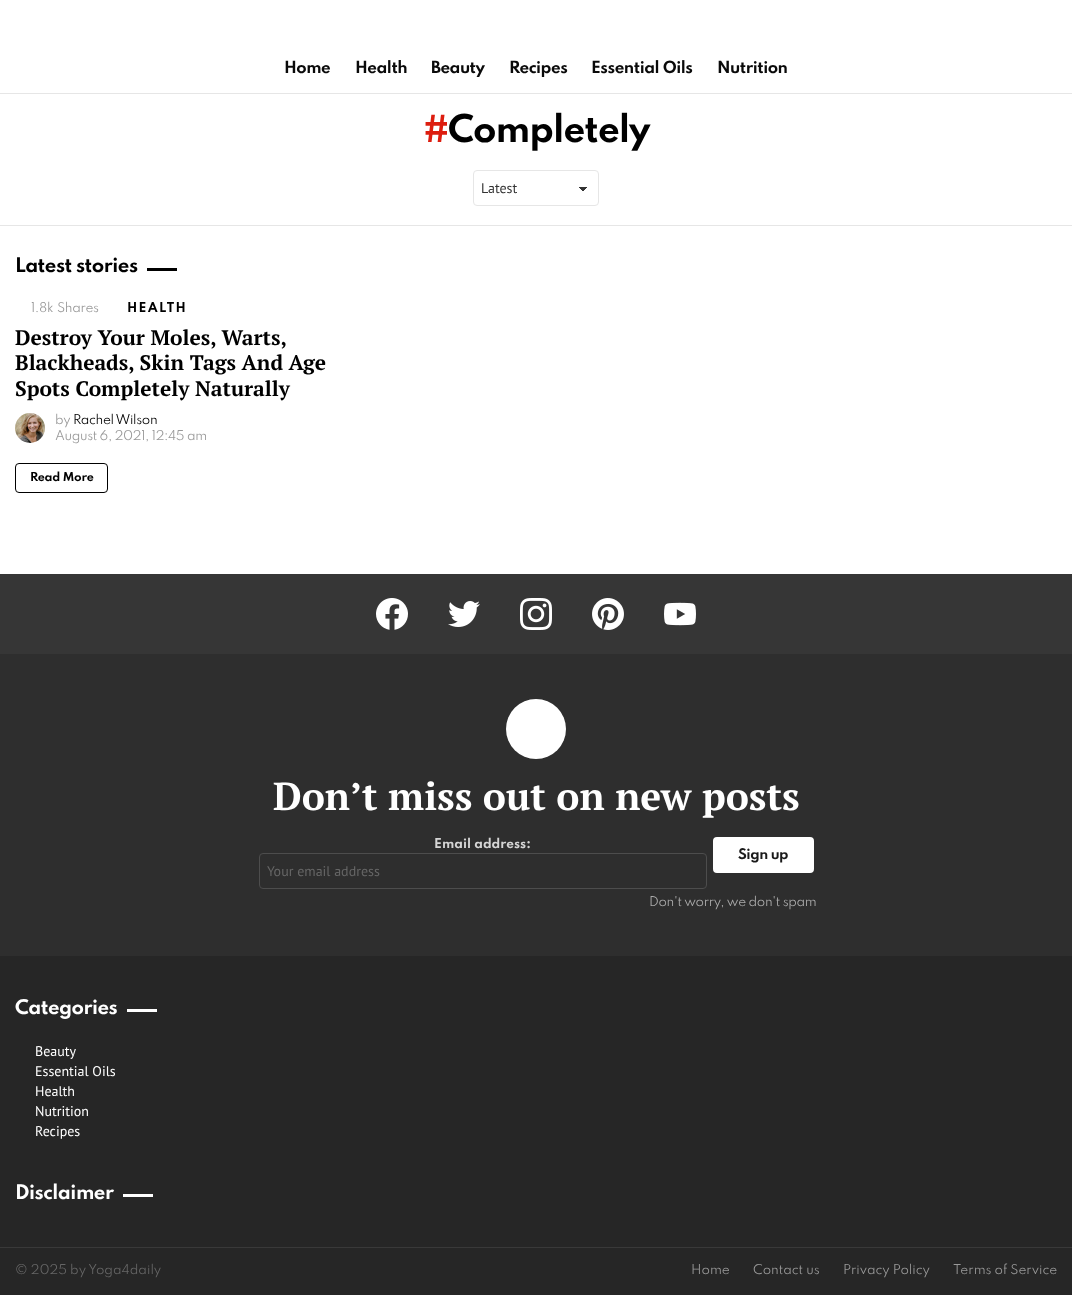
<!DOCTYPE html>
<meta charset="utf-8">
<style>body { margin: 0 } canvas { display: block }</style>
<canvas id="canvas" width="1072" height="1295"></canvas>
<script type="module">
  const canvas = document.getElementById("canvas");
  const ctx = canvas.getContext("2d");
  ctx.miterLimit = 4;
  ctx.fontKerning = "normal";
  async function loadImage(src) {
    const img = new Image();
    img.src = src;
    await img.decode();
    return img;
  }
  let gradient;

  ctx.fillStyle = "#ffffff";
  ctx.fillRect(0, 0, 1072, 1295);
  ctx.letterSpacing = "-0.5px";
  ctx.font = "bold 15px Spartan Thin";
  ctx.fillStyle = "#0a0a0a";
  ctx.fillText("Home", 284, 73);
  ctx.fillText("Health", 355, 73);
  ctx.fillText("Beauty", 431, 73);
  ctx.fillText("Recipes", 509, 73);
  ctx.fillText("Essential Oils", 591, 73);
  ctx.fillText("Nutrition", 717, 73);
  ctx.fillStyle = "#e6e6e6";
  ctx.fillRect(0, 93, 1072, 1);
  ctx.letterSpacing = "-1px";
  ctx.font = "bold 34px Spartan Thin";
  ctx.fillStyle = "#dd1d0f";
  ctx.fillText("#", 423, 142);
  ctx.fillStyle = "#000000";
  ctx.fillText("Completely", 448, 142);
  gradient = ctx.createLinearGradient(583, 187, 588, 191);
  gradient.addColorStop(0.5, "#333333");
  gradient.addColorStop(0.5, "#ffffff");
  ctx.fillStyle = gradient;
  ctx.fillRect(583, 187, 5, 4);
  gradient = ctx.createLinearGradient(578, 191, 583, 187);
  gradient.addColorStop(0.5, "#ffffff");
  gradient.addColorStop(0.5, "#333333");
  ctx.fillStyle = gradient;
  ctx.fillRect(578, 187, 5, 4);
  ctx.beginPath();
  ctx.roundRect(473.5, 170.5, 125, 35, 3.5);
  ctx.strokeStyle = "#e6e6e6";
  ctx.stroke();
  ctx.letterSpacing = "0px";
  ctx.font = "14px PT Sans";
  ctx.fillStyle = "#333333";
  ctx.fillText("Latest", 481, 193);
  ctx.fillStyle = "#e6e6e6";
  ctx.fillRect(0, 225, 1072, 1);
  ctx.letterSpacing = "-0.5px";
  ctx.font = "bold 18px Spartan Thin";
  ctx.fillStyle = "#000000";
  ctx.fillText("Latest stories", 15, 272);
  ctx.fillRect(147, 268, 30, 3);
  ctx.letterSpacing = "-0.35px";
  ctx.font = "12px Spartan Thin";
  ctx.fillStyle = "#999999";
  ctx.fillText("1.8k", 31, 312);
  ctx.fillText("Shares", 57, 312);
  ctx.letterSpacing = "1.25px";
  ctx.font = "bold 12px Spartan Thin";
  ctx.fillStyle = "#000000";
  ctx.fillText("HEALTH", 127, 312);
  ctx.letterSpacing = "0px";
  ctx.font = "bold 21px PT Serif";
  ctx.fillText("Destroy Your Moles, Warts,", 15, 345);
  ctx.fillText("Blackheads, Skin Tags And Age", 15, 370);
  ctx.fillText("Spots Completely Naturally", 15, 396);
  ctx.letterSpacing = "-0.35px";
  ctx.font = "12px Spartan Thin";
  ctx.fillStyle = "#999999";
  ctx.fillText("by", 55, 424);
  ctx.drawImage(await loadImage("img1.png"), 15, 413, 30, 30);
  ctx.fillStyle = "#000000";
  ctx.fillText("Rachel Wilson", 73, 424);
  ctx.fillStyle = "#999999";
  ctx.fillText("August 6, 2021, 12:45 am", 55, 440);
  ctx.beginPath();
  ctx.roundRect(15.5, 463.5, 92, 29, 3.5);
  ctx.strokeStyle = "#000000";
  ctx.stroke();
  ctx.letterSpacing = "-0.25px";
  ctx.font = "bold 11px Spartan Thin";
  ctx.fillStyle = "#000000";
  ctx.fillText("Read More", 30, 481);
  ctx.fillStyle = "#363636";
  ctx.fillRect(0, 574, 1072, 80);
  ctx.drawImage(await loadImage("img2.png"), 376, 598, 32, 32);
  ctx.drawImage(await loadImage("img3.png"), 448, 601, 32, 26);
  ctx.drawImage(await loadImage("img4.png"), 520, 598, 32, 32);
  ctx.drawImage(await loadImage("img5.png"), 592, 598, 32, 32);
  ctx.drawImage(await loadImage("img6.png"), 664, 602, 32, 24);
  ctx.fillStyle = "#2e2e2e";
  ctx.fillRect(0, 654, 1072, 302);
  ctx.fillStyle = "#ffffff";
  ctx.beginPath();
  ctx.arc(536, 729, 30, 0, Math.PI * 2);
  ctx.fill();
  ctx.letterSpacing = "0px";
  ctx.font = "bold 39px PT Serif";
  ctx.fillText("Don’t miss out on new posts", 273, 810);
  ctx.font = "bold 12px Spartan Thin";
  ctx.fillStyle = "#d5d5d5";
  ctx.fillText("Email address:", 434, 848);
  ctx.beginPath();
  ctx.roundRect(259.5, 853.5, 447, 35, 3.5);
  ctx.strokeStyle = "#4d4d4d";
  ctx.stroke();
  ctx.font = "14px PT Sans";
  ctx.fillStyle = "#666666";
  ctx.fillText("Your email address", 267, 876);
  ctx.fillStyle = "#ffffff";
  ctx.beginPath();
  ctx.roundRect(714, 838, 99, 34, 3);
  ctx.fill();
  ctx.strokeStyle = "#ffffff";
  ctx.lineWidth = 2;
  ctx.stroke();
  ctx.letterSpacing = "-0.5px";
  ctx.font = "bold 13px Spartan Thin";
  ctx.fillStyle = "#1a1a1a";
  ctx.fillText("Sign up", 738, 859);
  ctx.letterSpacing = "-0.35px";
  ctx.font = "12px Spartan Thin";
  ctx.fillStyle = "#ababab";
  ctx.fillText("Don't worry, we don't spam", 649, 906);
  ctx.fillStyle = "#262626";
  ctx.fillRect(0, 956, 1072, 291);
  ctx.letterSpacing = "-0.5px";
  ctx.font = "bold 18px Spartan Thin";
  ctx.fillStyle = "#ffffff";
  ctx.fillText("Categories", 15, 1014);
  ctx.fillRect(127, 1009, 30, 3);
  ctx.letterSpacing = "0px";
  ctx.font = "14px PT Sans";
  ctx.fillText("Beauty", 35, 1056);
  ctx.fillText("Essential Oils", 35, 1076);
  ctx.fillText("Health", 35, 1096);
  ctx.fillText("Nutrition", 35, 1116);
  ctx.fillText("Recipes", 35, 1136);
  ctx.letterSpacing = "-0.5px";
  ctx.font = "bold 18px Spartan Thin";
  ctx.fillText("Disclaimer", 15, 1199);
  ctx.fillRect(123, 1194, 30, 3);
  ctx.fillStyle = "#393939";
  ctx.fillRect(0, 1247, 1072, 1);
  ctx.fillStyle = "#262626";
  ctx.fillRect(0, 1248, 1072, 47);
  ctx.letterSpacing = "0px";
  ctx.font = "12px Spartan Thin";
  ctx.fillStyle = "#666666";
  ctx.fillText("© 2025 by Yoga4daily", 15, 1274);
  ctx.fillStyle = "#999999";
  ctx.fillText("Home", 691, 1274);
  ctx.fillText("Contact us", 753, 1274);
  ctx.fillText("Privacy Policy", 843, 1274);
  ctx.fillText("Terms of Service", 953, 1274);
</script>
